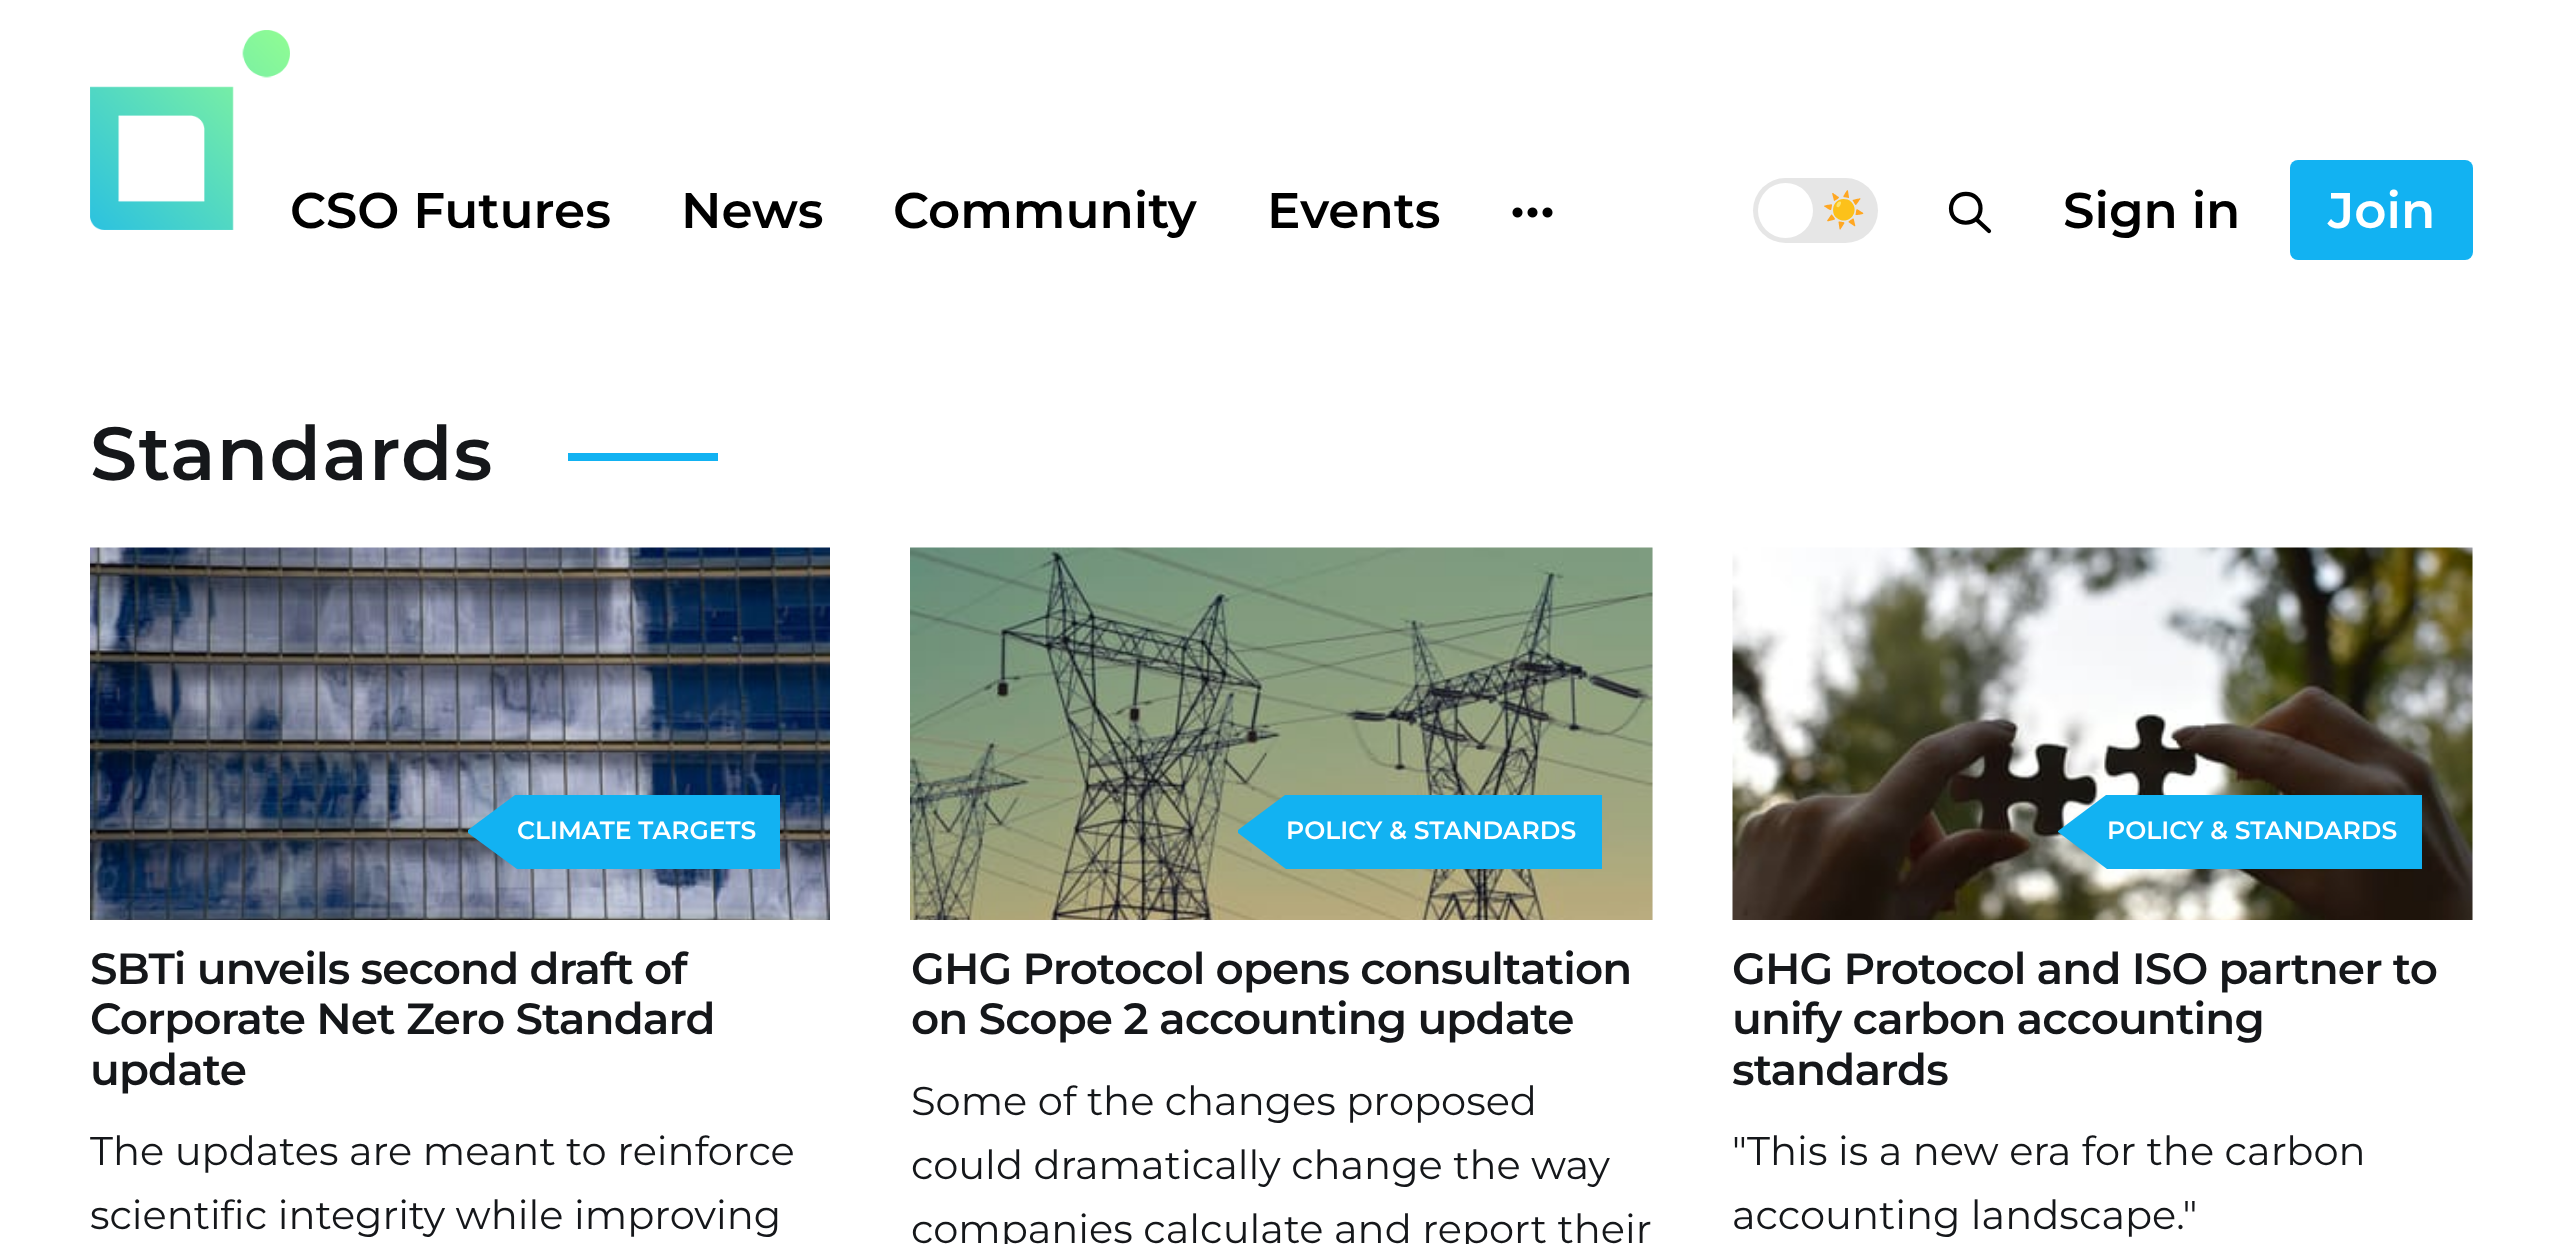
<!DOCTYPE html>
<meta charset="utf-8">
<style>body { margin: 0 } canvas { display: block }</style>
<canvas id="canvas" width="2561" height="1244"></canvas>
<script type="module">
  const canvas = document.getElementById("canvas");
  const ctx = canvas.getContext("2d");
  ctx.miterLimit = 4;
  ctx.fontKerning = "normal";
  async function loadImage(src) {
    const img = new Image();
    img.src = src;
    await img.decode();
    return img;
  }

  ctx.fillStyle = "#ffffff";
  ctx.fillRect(0, 0, 2561, 1244);
  ctx.drawImage(await loadImage("img1.png"), 90, 30, 200, 200);
  ctx.font = "600 50px Montserrat";
  ctx.fillStyle = "#000000";
  ctx.fillText("CSO Futures", 290, 228);
  ctx.fillText("News", 681, 228);
  ctx.fillText("Community", 893, 228);
  ctx.fillText("Events", 1267, 228);
  ctx.drawImage(await loadImage("img2.png"), 1512, 207, 41, 11);
  ctx.fillStyle = "#e6e6e6";
  ctx.beginPath();
  ctx.roundRect(1753, 178, 125, 65, 32.5);
  ctx.fill();
  ctx.fillStyle = "#ffffff";
  ctx.beginPath();
  ctx.arc(1785.5, 210.5, 27.5, 0, Math.PI * 2);
  ctx.fill();
  ctx.font = "bold 35px Noto Color Emoji";
  ctx.fillStyle = "#15171a";
  ctx.fillText("☀️", 1822, 222);
  ctx.beginPath();
  ctx.moveTo(1989, 231);
  ctx.lineTo(1976, 219);
  ctx.moveTo(1980.5, 208.5);
  ctx.bezierCurveTo(1980.5, 227.5, 1951, 227.5, 1951, 208.5);
  ctx.bezierCurveTo(1951.5, 189, 1980.5, 189, 1980.5, 208.5);
  ctx.closePath();
  ctx.strokeStyle = "#000000";
  ctx.lineWidth = 4.2;
  ctx.lineCap = "round";
  ctx.lineJoin = "round";
  ctx.stroke();
  ctx.font = "600 50px Montserrat";
  ctx.fillStyle = "#000000";
  ctx.fillText("Sign in", 2063, 228);
  ctx.fillStyle = "#12b2f2";
  ctx.beginPath();
  ctx.roundRect(2290, 160, 183, 100, 8);
  ctx.fill();
  ctx.fillStyle = "#ffffff";
  ctx.fillText("Join", 2328, 228);
  ctx.letterSpacing = "1.25px";
  ctx.font = "600 75px Montserrat";
  ctx.fillStyle = "#15171a";
  ctx.fillText("Standards", 90, 480);
  ctx.fillStyle = "#12b2f2";
  ctx.fillRect(568, 453, 150, 8);
  ctx.drawImage(await loadImage("img3.png"), 90, 547, 740, 373);
  ctx.beginPath();
  ctx.moveTo(468, 830);
  ctx.lineTo(468, 833);
  ctx.lineTo(517, 869);
  ctx.lineTo(780, 869);
  ctx.lineTo(780, 795);
  ctx.lineTo(515, 795);
  ctx.closePath();
  ctx.fill();
  ctx.letterSpacing = "0px";
  ctx.font = "600 25px Montserrat";
  ctx.fillStyle = "#ffffff";
  ctx.fillText("CLIMATE TARGETS", 517, 839);
  ctx.letterSpacing = "-0.9px";
  ctx.font = "600 43.75px Montserrat";
  ctx.fillStyle = "#15171a";
  ctx.fillText("SBTi unveils second draft of", 90, 984);
  ctx.fillText("Corporate Net Zero Standard", 90, 1034);
  ctx.fillText("update", 90, 1085);
  ctx.letterSpacing = "0px";
  ctx.font = "40px Montserrat";
  ctx.fillText("The updates are meant to reinforce", 90, 1165);
  ctx.fillText("scientific integrity while improving", 90, 1229);
  ctx.fillStyle = "#f6f6f6";
  ctx.fillRect(1652, 548, 1, 372);
  ctx.drawImage(await loadImage("img4.png"), 910, 547, 743, 373);
  ctx.fillStyle = "#12b2f2";
  ctx.beginPath();
  ctx.moveTo(1238, 830);
  ctx.lineTo(1238, 833);
  ctx.lineTo(1286, 869);
  ctx.lineTo(1602, 869);
  ctx.lineTo(1602, 795);
  ctx.lineTo(1285, 795);
  ctx.closePath();
  ctx.fill();
  ctx.font = "600 25px Montserrat";
  ctx.fillStyle = "#ffffff";
  ctx.fillText("POLICY & STANDARDS", 1286, 839);
  ctx.letterSpacing = "-0.9px";
  ctx.font = "600 43.75px Montserrat";
  ctx.fillStyle = "#15171a";
  ctx.fillText("GHG Protocol opens consultation", 911, 984);
  ctx.fillText("on Scope 2 accounting update", 911, 1034);
  ctx.letterSpacing = "0px";
  ctx.font = "40px Montserrat";
  ctx.fillText("Some of the changes proposed", 911, 1115);
  ctx.fillText("could dramatically change the way", 911, 1179);
  ctx.fillText("companies calculate and report their", 911, 1243);
  ctx.fillStyle = "#f6f6f6";
  ctx.fillRect(2472, 548, 1, 372);
  ctx.drawImage(await loadImage("img5.png"), 1732, 547, 741, 373);
  ctx.fillStyle = "#12b2f2";
  ctx.beginPath();
  ctx.moveTo(2058, 831);
  ctx.lineTo(2058, 832);
  ctx.lineTo(2107, 869);
  ctx.lineTo(2422, 869);
  ctx.lineTo(2422, 795);
  ctx.lineTo(2106, 795);
  ctx.closePath();
  ctx.fill();
  ctx.font = "600 25px Montserrat";
  ctx.fillStyle = "#ffffff";
  ctx.fillText("POLICY & STANDARDS", 2107, 839);
  ctx.letterSpacing = "-0.9px";
  ctx.font = "600 43.75px Montserrat";
  ctx.fillStyle = "#15171a";
  ctx.fillText("GHG Protocol and ISO partner to", 1732, 984);
  ctx.fillText("unify carbon accounting", 1732, 1034);
  ctx.fillText("standards", 1732, 1085);
  ctx.letterSpacing = "0px";
  ctx.font = "40px Montserrat";
  ctx.fillText("\"This is a new era for the carbon", 1732, 1165);
  ctx.fillText("accounting landscape.\"", 1732, 1229);
</script>
